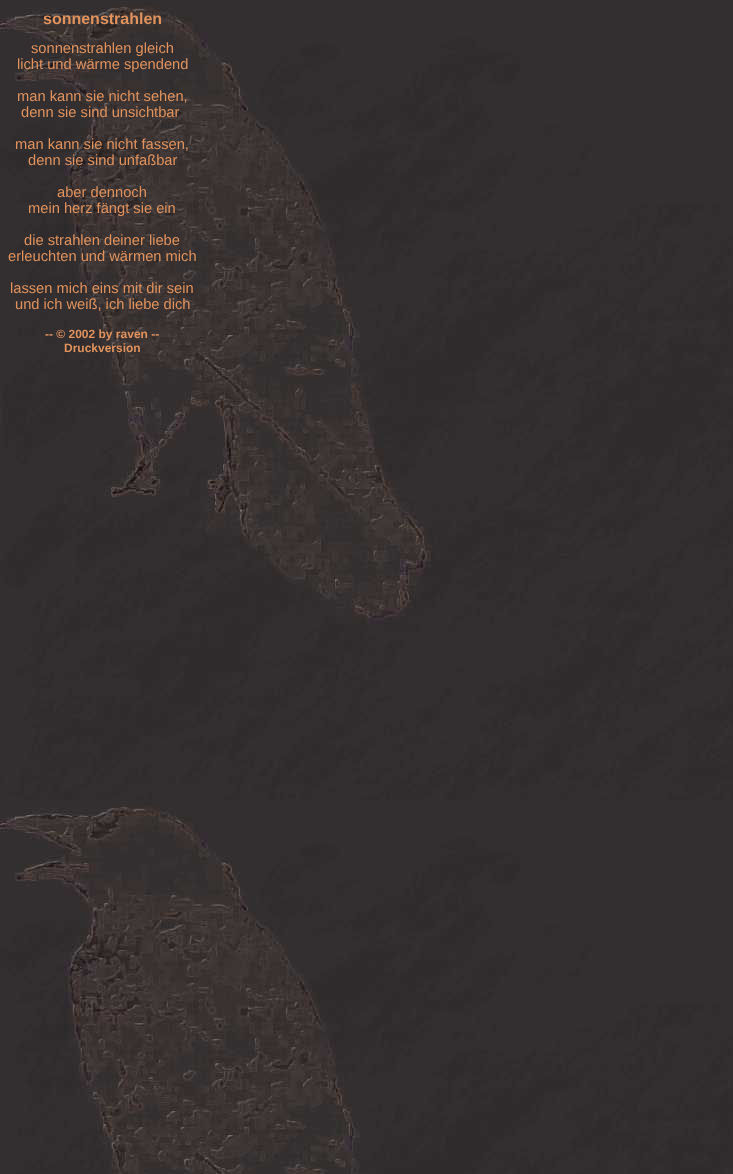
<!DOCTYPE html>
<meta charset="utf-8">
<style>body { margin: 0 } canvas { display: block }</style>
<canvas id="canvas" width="733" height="1174"></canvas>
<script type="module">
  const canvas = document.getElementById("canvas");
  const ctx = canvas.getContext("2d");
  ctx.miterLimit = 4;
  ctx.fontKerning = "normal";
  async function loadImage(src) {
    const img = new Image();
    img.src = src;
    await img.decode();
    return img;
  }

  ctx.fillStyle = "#332d31";
  ctx.fillRect(0, 0, 733, 1174);
  ctx.drawImage(await loadImage("img1.png"), 0, 1, 733, 1173);
  ctx.font = "bold 16px Liberation Sans";
  ctx.fillStyle = "#e1925d";
  ctx.fillText("sonnenstrahlen", 43, 24);
  ctx.font = "14.7px Liberation Sans";
  ctx.fillText("sonnenstrahlen gleich", 31, 53);
  ctx.fillText("licht und wärme spendend", 17, 69);
  ctx.fillText("man kann sie nicht sehen,", 17, 101);
  ctx.fillText("denn sie sind unsichtbar", 21, 117);
  ctx.fillText("man kann sie nicht fassen,", 15, 149);
  ctx.fillText("denn sie sind unfaßbar", 28, 165);
  ctx.fillText("aber dennoch", 57, 197);
  ctx.fillText("mein herz fängt sie ein", 28, 213);
  ctx.fillText("die strahlen deiner liebe", 24, 245);
  ctx.fillText("erleuchten und wärmen mich", 8, 261);
  ctx.fillText("lassen mich eins mit dir sein", 10, 293);
  ctx.fillText("und ich weiß, ich liebe dich", 15, 309);
  ctx.font = "bold 12px Liberation Sans";
  ctx.fillText("-- © 2002 by raven --", 45, 338);
  ctx.fillText("Druckversion", 64, 352);
</script>
